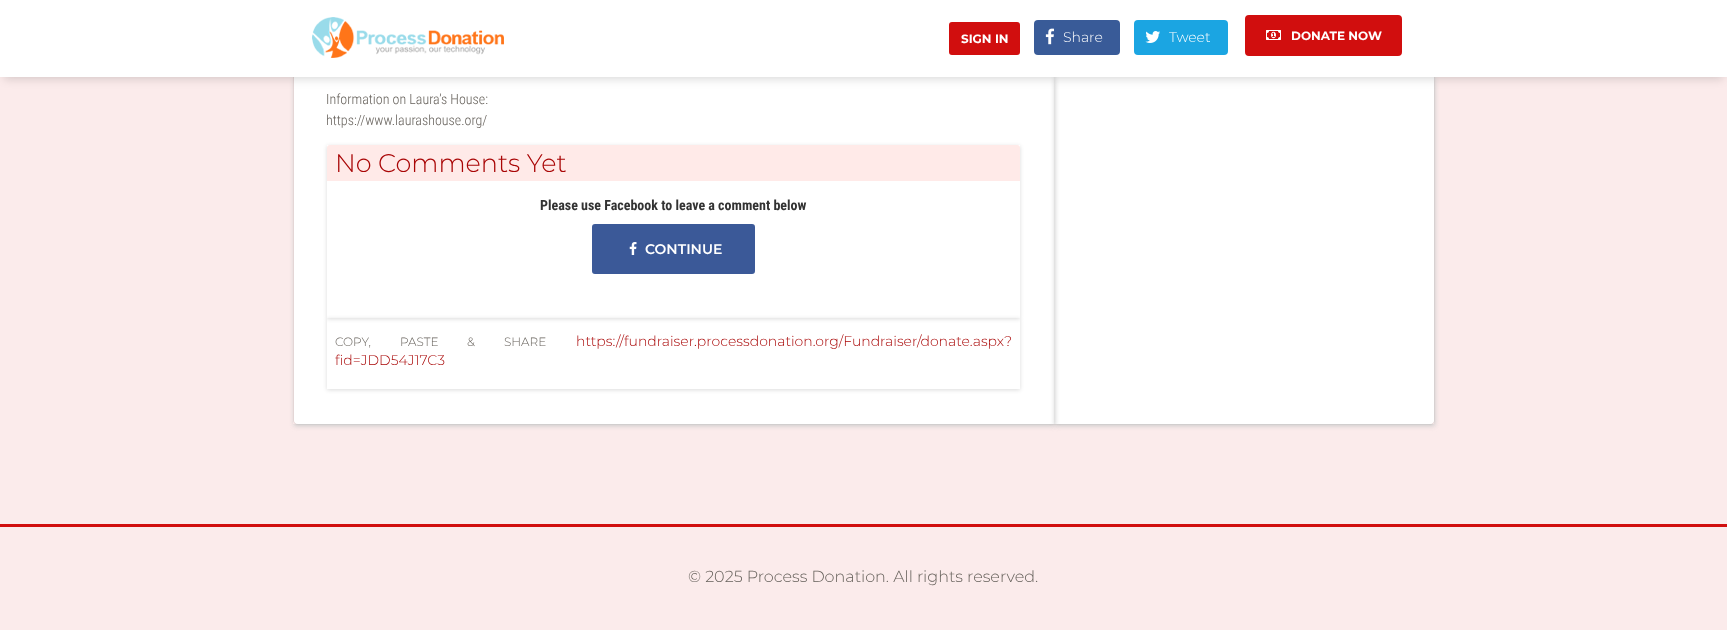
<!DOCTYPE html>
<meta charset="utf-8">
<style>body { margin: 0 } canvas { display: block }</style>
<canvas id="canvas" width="1727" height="630"></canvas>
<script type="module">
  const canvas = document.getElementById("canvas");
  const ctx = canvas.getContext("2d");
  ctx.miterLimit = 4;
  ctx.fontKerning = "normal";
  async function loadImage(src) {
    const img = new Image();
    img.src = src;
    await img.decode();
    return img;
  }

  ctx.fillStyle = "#fbebeb";
  ctx.fillRect(0, 0, 1727, 630);
  ctx.beginPath();
  ctx.roundRect(293.5, -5.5, 1141, 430, 4.5);
  ctx.strokeStyle = "#e8dada";
  ctx.stroke();
  ctx.fillStyle = "rgba(0, 0, 0, 0.05)";
  ctx.filter = "blur(1px)";
  ctx.beginPath();
  ctx.roundRect(294, -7, 1140, 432, 4);
  ctx.fill();
  ctx.filter = "none";
  ctx.fillStyle = "#ffffff";
  ctx.beginPath();
  ctx.roundRect(294, -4, 1140, 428, 4);
  ctx.fill();
  ctx.fillStyle = "rgba(0, 0, 0, 0.15)";
  ctx.filter = "blur(5px)";
  ctx.beginPath();
  ctx.rect(4, 10, 1719, 69);
  ctx.fill();
  ctx.filter = "none";
  ctx.save();
  ctx.beginPath();
  ctx.moveTo(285, 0);
  ctx.lineTo(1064, 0);
  ctx.lineTo(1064, 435);
  ctx.lineTo(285, 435);
  ctx.closePath();
  ctx.moveTo(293, -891);
  ctx.lineTo(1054, -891);
  ctx.lineTo(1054, 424);
  ctx.lineTo(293, 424);
  ctx.closePath();
  ctx.clip("evenodd");
  ctx.fillStyle = "#cccccc";
  ctx.filter = "blur(2.5px)";
  ctx.beginPath();
  ctx.rect(294, -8, 761, 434);
  ctx.fill();
  ctx.filter = "none";
  ctx.restore();
  ctx.save();
  ctx.beginPath();
  ctx.moveTo(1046, 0);
  ctx.lineTo(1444, 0);
  ctx.lineTo(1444, 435);
  ctx.lineTo(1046, 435);
  ctx.closePath();
  ctx.moveTo(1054, -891);
  ctx.lineTo(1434, -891);
  ctx.lineTo(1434, 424);
  ctx.lineTo(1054, 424);
  ctx.closePath();
  ctx.clip("evenodd");
  ctx.fillStyle = "#cccccc";
  ctx.filter = "blur(2.5px)";
  ctx.beginPath();
  ctx.rect(1055, -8, 380, 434);
  ctx.fill();
  ctx.filter = "none";
  ctx.restore();
  ctx.fillStyle = "#ffffff";
  ctx.fillRect(0, 0, 1727, 77);
  ctx.drawImage(await loadImage("img1.png"), 312, 17, 192, 41);
  ctx.fillStyle = "#d10e0e";
  ctx.beginPath();
  ctx.roundRect(950, 23, 69, 31, 2);
  ctx.fill();
  ctx.strokeStyle = "#d10e0e";
  ctx.lineWidth = 2;
  ctx.stroke();
  ctx.font = "bold 12px Montserrat";
  ctx.fillStyle = "#ffffff";
  ctx.fillText("SIGN IN", 961, 43);
  ctx.fillStyle = "#395b98";
  ctx.beginPath();
  ctx.roundRect(1034, 20, 86, 35, 4);
  ctx.fill();
  ctx.drawImage(await loadImage("img2.png"), 1045, 28, 9, 17);
  ctx.font = "300 14px Montserrat";
  ctx.fillStyle = "#ffffff";
  ctx.fillText("Share", 1063, 42);
  ctx.fillStyle = "#1ba5e2";
  ctx.beginPath();
  ctx.roundRect(1134, 20, 94, 35, 4);
  ctx.fill();
  ctx.drawImage(await loadImage("img3.png"), 1145, 31, 15, 12);
  ctx.fillStyle = "#ffffff";
  ctx.fillText("Tweet", 1169, 42);
  ctx.fillStyle = "#d10e0e";
  ctx.beginPath();
  ctx.roundRect(1246, 16, 155, 39, 3);
  ctx.fill();
  ctx.stroke();
  ctx.drawImage(await loadImage("img4.png"), 1266, 30, 15, 10);
  ctx.font = "bold 12px Montserrat";
  ctx.fillStyle = "#ffffff";
  ctx.fillText("DONATE NOW", 1291, 40);
  ctx.font = "300 14px Roboto Condensed";
  ctx.fillStyle = "#66615b";
  ctx.fillText("Information on Laura’s House:", 326, 104);
  ctx.fillText("https://www.laurashouse.org/", 326, 125);
  ctx.save();
  ctx.beginPath();
  ctx.moveTo(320, 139);
  ctx.lineTo(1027, 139);
  ctx.lineTo(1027, 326);
  ctx.lineTo(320, 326);
  ctx.closePath();
  ctx.moveTo(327, 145);
  ctx.lineTo(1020, 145);
  ctx.lineTo(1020, 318);
  ctx.lineTo(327, 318);
  ctx.closePath();
  ctx.clip("evenodd");
  ctx.fillStyle = "rgba(0, 0, 0, 0.14)";
  ctx.filter = "blur(2px)";
  ctx.beginPath();
  ctx.rect(327, 146, 693, 173);
  ctx.fill();
  ctx.filter = "none";
  ctx.restore();
  ctx.fillStyle = "#ffeae8";
  ctx.beginPath();
  ctx.roundRect(327, 145, 693, 36, [3, 3, 0, 0]);
  ctx.fill();
  ctx.font = "300 25.5px Montserrat";
  ctx.fillStyle = "#a90606";
  ctx.fillText("No Comments Yet", 335, 172);
  ctx.font = "bold 14px Roboto Condensed";
  ctx.fillStyle = "#333333";
  ctx.fillText("Please use Facebook to leave a comment below", 540, 210);
  ctx.fillStyle = "#3b5998";
  ctx.beginPath();
  ctx.roundRect(593, 225, 161, 48, 2);
  ctx.fill();
  ctx.strokeStyle = "#3b5998";
  ctx.stroke();
  ctx.drawImage(await loadImage("img5.png"), 629, 242, 8, 13);
  ctx.font = "600 14px Montserrat";
  ctx.fillStyle = "#ffffff";
  ctx.fillText("CONTINUE", 645, 254);
  ctx.save();
  ctx.beginPath();
  ctx.moveTo(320, 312);
  ctx.lineTo(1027, 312);
  ctx.lineTo(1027, 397);
  ctx.lineTo(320, 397);
  ctx.closePath();
  ctx.moveTo(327, 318);
  ctx.lineTo(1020, 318);
  ctx.lineTo(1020, 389);
  ctx.lineTo(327, 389);
  ctx.closePath();
  ctx.clip("evenodd");
  ctx.fillStyle = "rgba(0, 0, 0, 0.14)";
  ctx.filter = "blur(2px)";
  ctx.beginPath();
  ctx.rect(327, 319, 693, 71);
  ctx.fill();
  ctx.filter = "none";
  ctx.restore();
  ctx.font = "300 12px Montserrat";
  ctx.fillStyle = "#66615b";
  ctx.fillText("COPY,", 335, 346);
  ctx.fillText("PASTE", 400, 346);
  ctx.fillText("&", 467, 346);
  ctx.fillText("SHARE", 504, 346);
  ctx.font = "300 14px Montserrat";
  ctx.fillStyle = "#a90606";
  ctx.fillText("https://fundraiser.processdonation.org/Fundraiser/donate.aspx?", 576, 346);
  ctx.fillText("fid=JDD54J17C3", 335, 365);
  ctx.fillStyle = "#d10e0e";
  ctx.fillRect(0, 524, 1727, 3);
  ctx.font = "300 16px Montserrat";
  ctx.fillStyle = "#66615b";
  ctx.fillText("© 2025 Process Donation. All rights reserved.", 688, 582);
</script>
